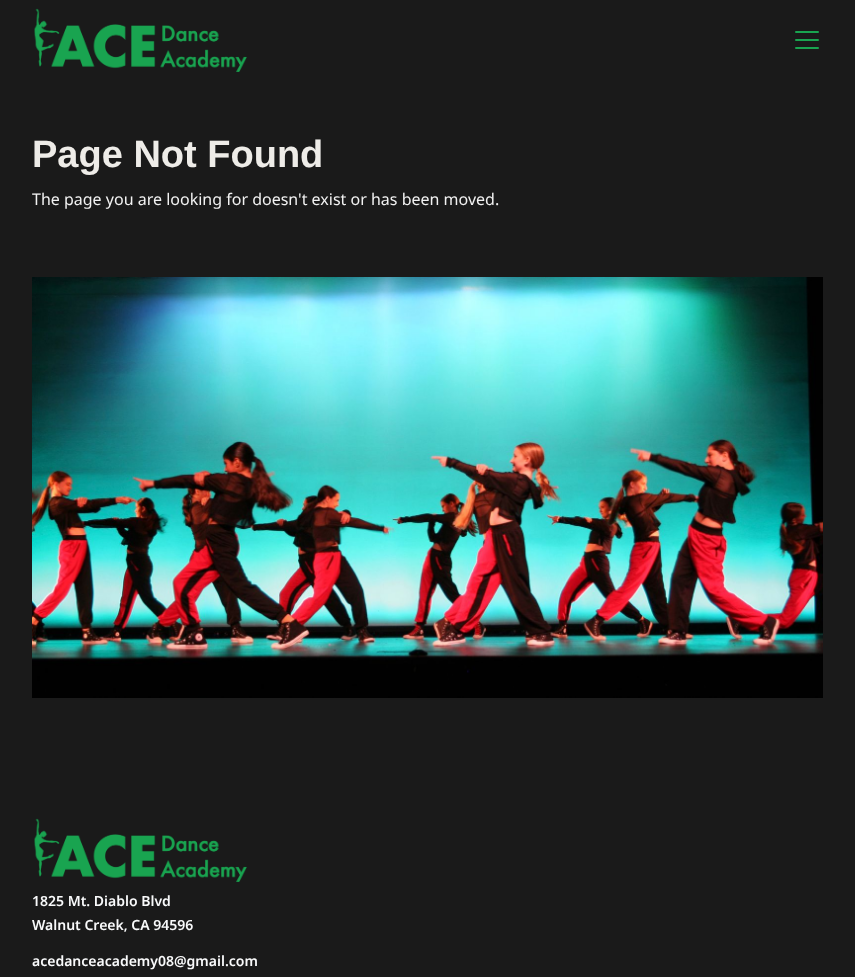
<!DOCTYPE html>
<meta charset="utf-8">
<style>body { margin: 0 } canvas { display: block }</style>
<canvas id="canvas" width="855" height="977"></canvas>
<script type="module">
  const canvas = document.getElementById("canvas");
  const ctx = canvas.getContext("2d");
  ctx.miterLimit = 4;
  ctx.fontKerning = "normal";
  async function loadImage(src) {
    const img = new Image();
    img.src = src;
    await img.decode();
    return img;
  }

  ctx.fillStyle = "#1a1a1a";
  ctx.fillRect(0, 0, 855, 977);
  ctx.drawImage(await loadImage("img1.png"), 34, 8, 213, 64);
  ctx.fillStyle = "#19a450";
  ctx.beginPath();
  ctx.roundRect(795, 31, 24, 2, 1);
  ctx.fill();
  ctx.beginPath();
  ctx.roundRect(795, 39, 24, 2, 1);
  ctx.fill();
  ctx.beginPath();
  ctx.roundRect(795, 47, 24, 2, 1);
  ctx.fill();
  ctx.font = "bold 38px Liberation Sans";
  ctx.fillStyle = "#eeece8";
  ctx.fillText("Page Not Found", 32, 167);
  ctx.font = "16px Noto Sans";
  ctx.fillStyle = "#f2f2f2";
  ctx.fillText("The page you are looking for doesn't exist or has been moved.", 32, 205);
  ctx.drawImage(await loadImage("img2.png"), 32, 277, 791, 421);
  ctx.drawImage(await loadImage("img1.png"), 34, 818, 213, 64);
  ctx.font = "600 14px Noto Sans";
  ctx.fillStyle = "#f9fafb";
  ctx.fillText("1825 Mt. Diablo Blvd", 32, 906);
  ctx.fillText("Walnut Creek, CA 94596", 32, 930);
  ctx.fillText("acedanceacademy08@gmail.com", 32, 966);
</script>
